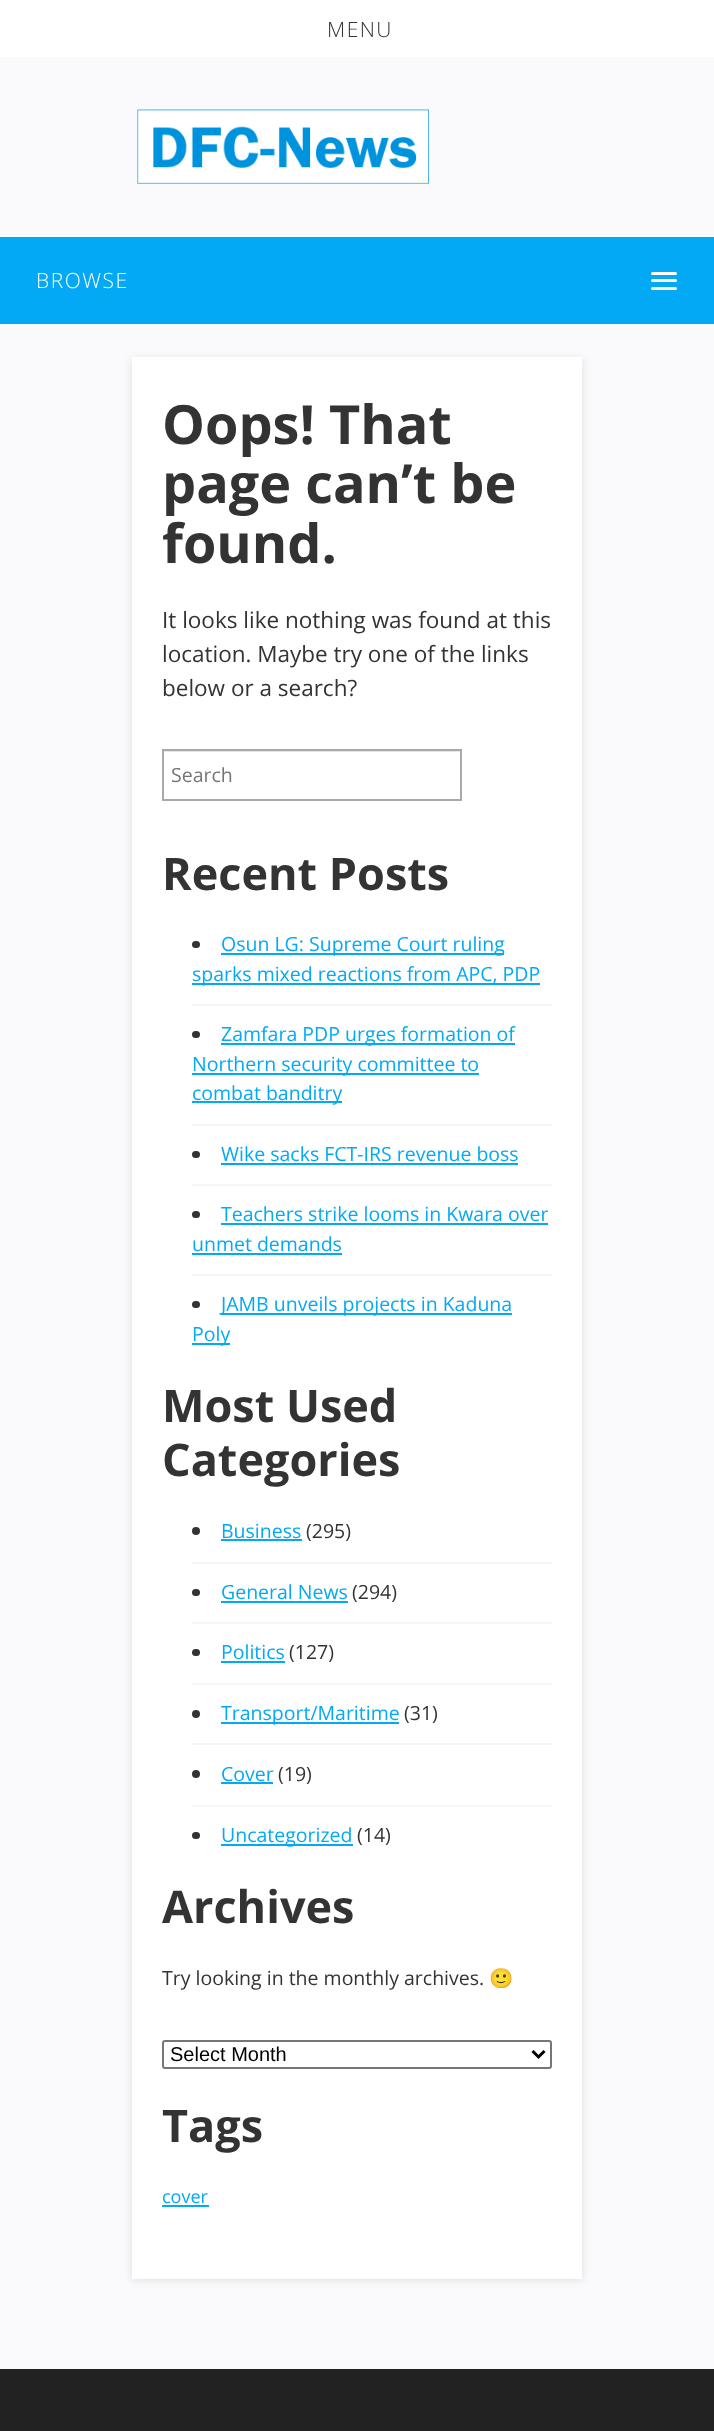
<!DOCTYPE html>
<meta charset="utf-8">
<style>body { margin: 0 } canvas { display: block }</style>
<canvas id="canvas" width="714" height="2431"></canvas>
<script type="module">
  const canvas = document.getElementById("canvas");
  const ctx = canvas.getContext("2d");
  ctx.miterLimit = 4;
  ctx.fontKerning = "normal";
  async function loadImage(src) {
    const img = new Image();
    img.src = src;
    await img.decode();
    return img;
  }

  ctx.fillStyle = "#fafafc";
  ctx.fillRect(0, 0, 714, 2431);
  ctx.fillStyle = "#ffffff";
  ctx.fillRect(0, 0, 714, 57);
  ctx.letterSpacing = "1.5px";
  ctx.font = "300 21px Open Sans";
  ctx.fillStyle = "#333333";
  ctx.fillText("MENU", 327, 37);
  ctx.drawImage(await loadImage("img1.png"), 137, 109, 292, 75);
  ctx.fillStyle = "#03a9f4";
  ctx.fillRect(0, 237, 714, 87);
  ctx.fillStyle = "#ffffff";
  ctx.fillText("BROWSE", 36, 288);
  ctx.beginPath();
  ctx.roundRect(651, 272, 26, 3, 1.5);
  ctx.fill();
  ctx.beginPath();
  ctx.roundRect(651, 279, 26, 3, 1.5);
  ctx.fill();
  ctx.beginPath();
  ctx.roundRect(651, 287, 26, 3, 1.5);
  ctx.fill();
  ctx.fillStyle = "rgba(190, 190, 190, 0.46)";
  ctx.filter = "blur(4px)";
  ctx.beginPath();
  ctx.rect(132, 359, 450, 1921);
  ctx.fill();
  ctx.filter = "none";
  ctx.fillStyle = "#ffffff";
  ctx.fillRect(132, 357, 450, 1922);
  ctx.letterSpacing = "0px";
  ctx.font = "bold 54px Open Sans";
  ctx.fillStyle = "#333333";
  ctx.fillText("Oops! That", 162, 444);
  ctx.fillText("page can’t be", 162, 503);
  ctx.fillText("found.", 162, 563);
  ctx.font = "22.5px Open Sans";
  ctx.fillText("It looks like nothing was found at this", 162, 628);
  ctx.fillText("location. Maybe try one of the links", 162, 662);
  ctx.fillText("below or a search?", 162, 696);
  ctx.fillStyle = "#e6e6e6";
  ctx.fillRect(164, 751, 297, 1);
  ctx.strokeStyle = "#a9a9a9";
  ctx.lineWidth = 2;
  ctx.strokeRect(163, 750, 298, 50);
  ctx.font = "19.5px Open Sans";
  ctx.fillStyle = "#757575";
  ctx.fillText("Search", 171, 782);
  ctx.font = "bold 45px Open Sans";
  ctx.fillStyle = "#333333";
  ctx.fillText("Recent Posts", 162, 890);
  ctx.fillStyle = "#f5f5f5";
  ctx.fillRect(192, 1004, 360, 2);
  ctx.fillStyle = "#333333";
  ctx.beginPath();
  ctx.roundRect(192, 941, 8, 7, 3.5);
  ctx.fill();
  ctx.fillStyle = "#03a9f4";
  ctx.fillRect(221, 953, 283, 2);
  ctx.font = "19.5px Open Sans";
  ctx.fillText("Osun LG: Supreme Court ruling", 221, 951);
  ctx.fillRect(192, 983, 348, 2);
  ctx.fillText("sparks mixed reactions from APC, PDP", 192, 981);
  ctx.fillStyle = "#f5f5f5";
  ctx.fillRect(192, 1124, 360, 2);
  ctx.fillStyle = "#333333";
  ctx.beginPath();
  ctx.roundRect(192, 1031, 8, 7, 3.5);
  ctx.fill();
  ctx.fillStyle = "#03a9f4";
  ctx.fillRect(221, 1043, 294, 2);
  ctx.fillText("Zamfara PDP urges formation of", 221, 1041);
  ctx.fillRect(192, 1073, 287, 2);
  ctx.fillText("Northern security committee to", 192, 1071);
  ctx.fillRect(192, 1101, 150, 2);
  ctx.fillText("combat banditry", 192, 1100);
  ctx.fillStyle = "#f5f5f5";
  ctx.fillRect(192, 1184, 360, 2);
  ctx.fillStyle = "#333333";
  ctx.beginPath();
  ctx.roundRect(192, 1151, 8, 7, 3.5);
  ctx.fill();
  ctx.fillStyle = "#03a9f4";
  ctx.fillText("Wike sacks FCT-IRS revenue boss", 221, 1161);
  ctx.fillRect(221, 1163, 297, 2);
  ctx.fillStyle = "#f5f5f5";
  ctx.fillRect(192, 1274, 360, 2);
  ctx.fillStyle = "#333333";
  ctx.beginPath();
  ctx.roundRect(192, 1211, 8, 7, 3.5);
  ctx.fill();
  ctx.fillStyle = "#03a9f4";
  ctx.fillText("Teachers strike looms in Kwara over", 221, 1221);
  ctx.fillRect(221, 1223, 327, 2);
  ctx.fillText("unmet demands", 192, 1251);
  ctx.fillRect(192, 1253, 150, 2);
  ctx.fillStyle = "#333333";
  ctx.beginPath();
  ctx.roundRect(192, 1301, 8, 7, 3.5);
  ctx.fill();
  ctx.fillStyle = "#03a9f4";
  ctx.fillRect(221, 1313, 291, 2);
  ctx.fillText("JAMB unveils projects in Kaduna", 221, 1311);
  ctx.fillRect(192, 1343, 38, 2);
  ctx.fillText("Poly", 192, 1341);
  ctx.font = "bold 45px Open Sans";
  ctx.fillStyle = "#333333";
  ctx.fillText("Most Used", 162, 1422);
  ctx.fillText("Categories", 162, 1476);
  ctx.fillStyle = "#f5f5f5";
  ctx.fillRect(192, 1562, 360, 2);
  ctx.fillStyle = "#333333";
  ctx.beginPath();
  ctx.arc(196, 1531, 4, 0, Math.PI * 2);
  ctx.fill();
  ctx.font = "19.5px Open Sans";
  ctx.fillStyle = "#03a9f4";
  ctx.fillText("Business", 221, 1538);
  ctx.fillRect(221, 1539, 81, 2);
  ctx.fillStyle = "#333333";
  ctx.fillText("(295)", 306, 1538);
  ctx.fillStyle = "#f5f5f5";
  ctx.fillRect(192, 1622, 360, 2);
  ctx.fillStyle = "#333333";
  ctx.beginPath();
  ctx.roundRect(192, 1589, 8, 7, 3.5);
  ctx.fill();
  ctx.fillStyle = "#03a9f4";
  ctx.fillText("General News", 221, 1599);
  ctx.fillRect(221, 1601, 127, 2);
  ctx.fillStyle = "#333333";
  ctx.fillText("(294)", 352, 1599);
  ctx.fillStyle = "#f5f5f5";
  ctx.fillRect(192, 1683, 360, 2);
  ctx.fillStyle = "#333333";
  ctx.beginPath();
  ctx.roundRect(192, 1649, 8, 7, 3.5);
  ctx.fill();
  ctx.fillStyle = "#03a9f4";
  ctx.fillText("Politics", 221, 1659);
  ctx.fillRect(221, 1661, 64, 2);
  ctx.fillStyle = "#333333";
  ctx.fillText("(127)", 289, 1659);
  ctx.fillStyle = "#f5f5f5";
  ctx.fillRect(192, 1743, 360, 2);
  ctx.fillStyle = "#333333";
  ctx.beginPath();
  ctx.arc(196, 1714, 4, 0, Math.PI * 2);
  ctx.fill();
  ctx.fillStyle = "#03a9f4";
  ctx.fillRect(221, 1722, 178, 2);
  ctx.fillText("Transport/Maritime", 221, 1720);
  ctx.fillStyle = "#333333";
  ctx.fillText("(31)", 404, 1720);
  ctx.fillStyle = "#f5f5f5";
  ctx.fillRect(192, 1805, 360, 2);
  ctx.fillStyle = "#333333";
  ctx.beginPath();
  ctx.arc(196, 1774, 4, 0, Math.PI * 2);
  ctx.fill();
  ctx.fillStyle = "#03a9f4";
  ctx.fillText("Cover", 221, 1781);
  ctx.fillRect(221, 1782, 52, 2);
  ctx.fillStyle = "#333333";
  ctx.fillText("(19)", 278, 1781);
  ctx.beginPath();
  ctx.roundRect(192, 1832, 8, 7, 3.5);
  ctx.fill();
  ctx.fillStyle = "#03a9f4";
  ctx.fillRect(221, 1844, 132, 2);
  ctx.fillText("Uncategorized", 221, 1842);
  ctx.fillStyle = "#333333";
  ctx.fillText("(14)", 357, 1842);
  ctx.font = "bold 45px Open Sans";
  ctx.fillText("Archives", 162, 1923);
  ctx.font = "19.5px Open Sans";
  ctx.fillText("Try looking in the monthly archives.", 162, 1985);
  ctx.font = "19.5px Noto Color Emoji";
  ctx.fillText("🙂", 489, 1985);
  ctx.beginPath();
  ctx.roundRect(163, 2041, 388, 27, 2);
  ctx.strokeStyle = "#767676";
  ctx.stroke();
  ctx.beginPath();
  ctx.moveTo(532.5, 2051);
  ctx.lineTo(538.5, 2057);
  ctx.lineTo(544.5, 2051);
  ctx.strokeStyle = "#000000";
  ctx.lineWidth = 3;
  ctx.stroke();
  ctx.font = "20px Liberation Sans";
  ctx.fillStyle = "#000000";
  ctx.fillText("Select Month", 170, 2061);
  ctx.font = "bold 45px Open Sans";
  ctx.fillStyle = "#333333";
  ctx.fillText("Tags", 162, 2142);
  ctx.font = "18px Open Sans";
  ctx.fillStyle = "#03a9f4";
  ctx.fillText("cover", 162, 2203);
  ctx.fillRect(162, 2205, 47, 2);
  ctx.fillStyle = "#222222";
  ctx.fillRect(0, 2369, 714, 62);
</script>
